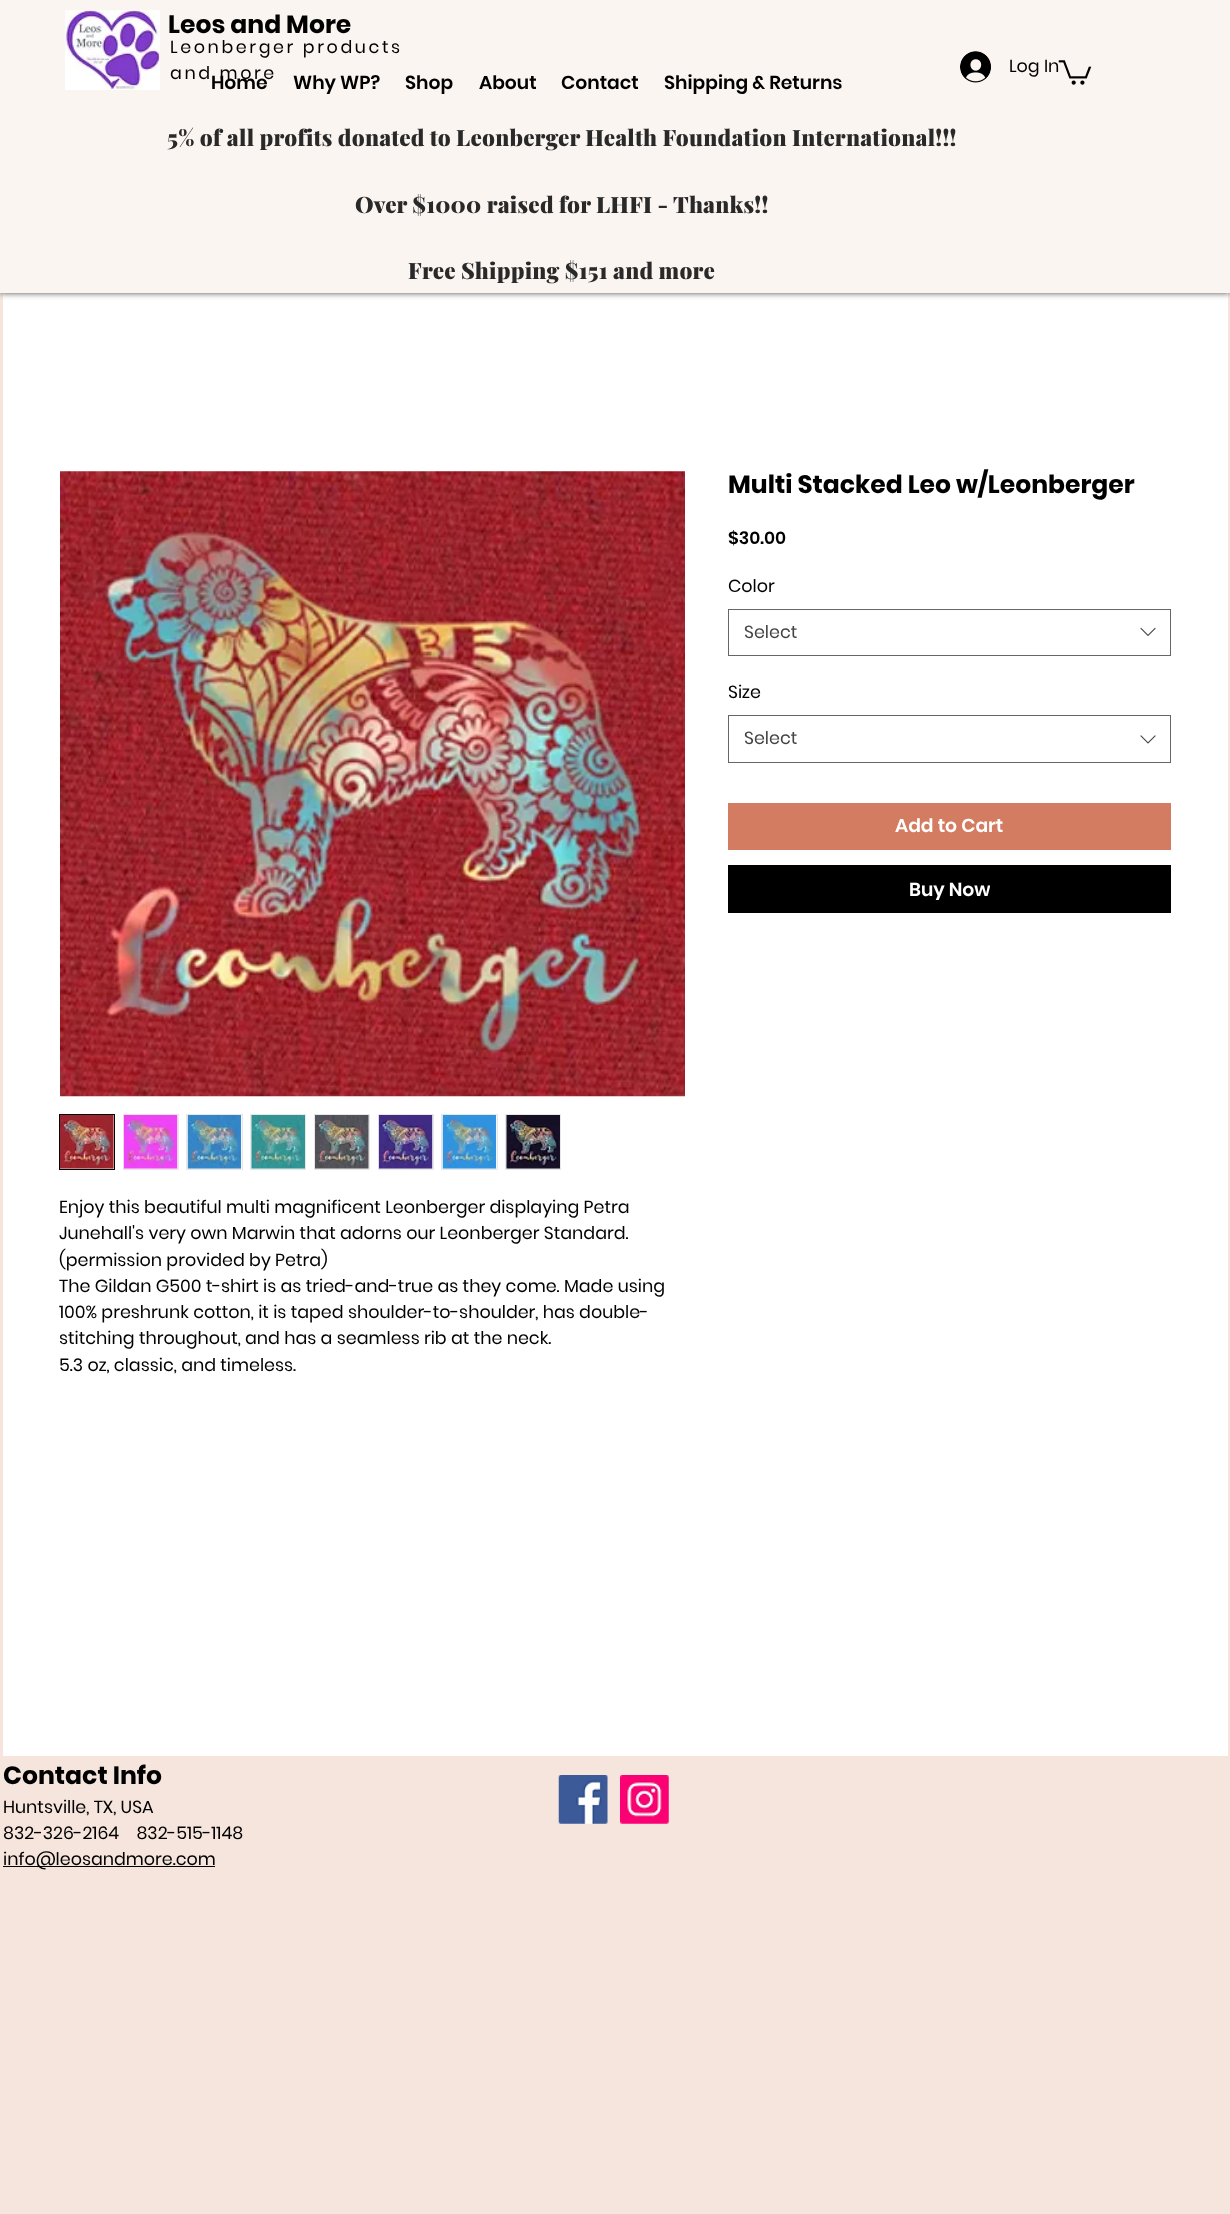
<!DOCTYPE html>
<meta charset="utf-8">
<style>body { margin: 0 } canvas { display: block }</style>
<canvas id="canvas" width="1230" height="2214"></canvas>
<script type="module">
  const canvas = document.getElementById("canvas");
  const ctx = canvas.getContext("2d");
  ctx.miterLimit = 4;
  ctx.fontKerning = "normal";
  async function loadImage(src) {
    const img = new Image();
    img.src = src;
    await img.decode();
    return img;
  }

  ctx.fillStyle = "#f6e5dc";
  ctx.fillRect(0, 0, 1230, 2214);
  ctx.fillStyle = "#ffffff";
  ctx.fillRect(3, 293, 1225, 1463);
  ctx.save();
  ctx.beginPath();
  ctx.moveTo(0, 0);
  ctx.lineTo(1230, 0);
  ctx.lineTo(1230, 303);
  ctx.lineTo(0, 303);
  ctx.closePath();
  ctx.moveTo(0, 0);
  ctx.lineTo(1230, 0);
  ctx.lineTo(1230, 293);
  ctx.lineTo(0, 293);
  ctx.closePath();
  ctx.clip("evenodd");
  ctx.fillStyle = "rgba(0, 0, 0, 0.7)";
  ctx.filter = "blur(3px)";
  ctx.beginPath();
  ctx.rect(0, 0, 1230, 293);
  ctx.fill();
  ctx.filter = "none";
  ctx.restore();
  ctx.fillStyle = "rgba(255, 255, 255, 0.6)";
  ctx.fillRect(0, 0, 1230, 293);
  ctx.drawImage(await loadImage("img1.png"), 65, 10, 95, 80);
  ctx.font = "bold 25px Poppins";
  ctx.fillStyle = "#000000";
  ctx.fillText("Leos and More", 168, 33);
  ctx.letterSpacing = "2.6px";
  ctx.font = "17.5px Poppins";
  ctx.fillText("Leonberger products", 170, 53);
  ctx.fillText("and more", 170, 79);
  ctx.letterSpacing = "0px";
  ctx.font = "600 18.75px Poppins";
  ctx.fillText("Home", 211, 89);
  ctx.fillText("Why WP?", 293, 89);
  ctx.fillText("Shop", 405, 89);
  ctx.fillText("About", 479, 89);
  ctx.fillText("Contact", 561, 89);
  ctx.fillText("Shipping & Returns", 664, 89);
  ctx.drawImage(await loadImage("img2.png"), 960, 51, 31, 32);
  ctx.font = "17.5px Poppins";
  ctx.fillText("Log In", 1009, 72);
  ctx.drawImage(await loadImage("img3.png"), 1058, 60, 34, 25);
  ctx.letterSpacing = "0.22px";
  ctx.font = "900 22.5px Playfair Display";
  ctx.fillStyle = "#292929";
  ctx.fillText("5% of all profits donated to Leonberger Health Foundation International!!!", 167, 146);
  ctx.fillText("Over $1000 raised for LHFI - Thanks!!", 355, 213);
  ctx.fillText("Free Shipping $151 and more", 408, 279);
  ctx.letterSpacing = "0px";
  ctx.font = "bold 25px Poppins";
  ctx.fillStyle = "#000000";
  ctx.fillText("Multi Stacked Leo w/Leonberger", 728, 493);
  ctx.font = "600 17.5px Poppins";
  ctx.fillText("$30.00", 728, 544);
  ctx.font = "17.5px Poppins";
  ctx.fillText("Color", 728, 592);
  ctx.strokeStyle = "#666666";
  ctx.strokeRect(728.5, 609.5, 442, 46);
  ctx.fillStyle = "#444444";
  ctx.fillText("Select", 744, 638);
  ctx.drawImage(await loadImage("img4.png"), 1140, 627, 16, 10);
  ctx.fillStyle = "#000000";
  ctx.fillText("Size", 728, 698);
  ctx.strokeRect(728.5, 715.5, 442, 47);
  ctx.fillStyle = "#444444";
  ctx.fillText("Select", 744, 744);
  ctx.drawImage(await loadImage("img5.png"), 1140, 735, 16, 9);
  ctx.fillStyle = "#d47c61";
  ctx.fillRect(728, 803, 443, 47);
  ctx.font = "600 18.75px Poppins";
  ctx.fillStyle = "#ffffff";
  ctx.fillText("Add to Cart", 895, 832);
  ctx.fillStyle = "#000000";
  ctx.fillRect(728, 865, 443, 48);
  ctx.save();
  ctx.beginPath();
  ctx.rect(909, 878, 81, 22);
  ctx.clip();
  ctx.fillStyle = "#ffffff";
  ctx.fillText("Buy Now", 909, 896);
  ctx.restore();
  ctx.drawImage(await loadImage("img6.png"), 60, 471, 625, 626);
  ctx.strokeStyle = "#000000";
  ctx.strokeRect(59.5, 1114.5, 55, 55);
  ctx.drawImage(await loadImage("img7.png"), 60, 1115, 54, 54);
  ctx.strokeStyle = "#e8e6e6";
  ctx.strokeRect(123.5, 1114.5, 55, 55);
  ctx.drawImage(await loadImage("img8.png"), 123, 1115, 55, 54);
  ctx.strokeRect(186.5, 1114.5, 56, 55);
  ctx.drawImage(await loadImage("img9.png"), 187, 1115, 55, 54);
  ctx.strokeRect(250.5, 1114.5, 55, 55);
  ctx.drawImage(await loadImage("img10.png"), 251, 1115, 54, 54);
  ctx.strokeRect(314.5, 1114.5, 55, 55);
  ctx.drawImage(await loadImage("img11.png"), 315, 1115, 54, 54);
  ctx.strokeRect(378.5, 1114.5, 55, 55);
  ctx.drawImage(await loadImage("img12.png"), 378, 1115, 55, 54);
  ctx.strokeRect(441.5, 1114.5, 56, 55);
  ctx.drawImage(await loadImage("img13.png"), 442, 1115, 55, 54);
  ctx.strokeRect(505.5, 1114.5, 55, 55);
  ctx.drawImage(await loadImage("img14.png"), 506, 1115, 54, 54);
  ctx.font = "17.5px Poppins";
  ctx.fillText("Enjoy this beautiful multi magnificent Leonberger displaying Petra", 59, 1213);
  ctx.fillText("Junehall's very own Marwin that adorns our Leonberger Standard.", 59, 1239);
  ctx.fillText("(permission provided by Petra)", 59, 1266);
  ctx.fillText("The Gildan G500 t-shirt is as tried-and-true as they come. Made using", 59, 1292);
  ctx.fillText("100% preshrunk cotton, it is taped shoulder-to-shoulder, has double-", 59, 1318);
  ctx.fillText("stitching throughout, and has a seamless rib at the neck.", 59, 1344);
  ctx.fillText("5.3 oz, classic, and timeless.", 59, 1371);
  ctx.font = "bold 25px Poppins";
  ctx.fillText("Contact Info", 3, 1784);
  ctx.font = "17.5px Poppins";
  ctx.fillText("Huntsville, TX, USA", 3, 1813);
  ctx.fillText("832-326-2164    832-515-1148", 3, 1839);
  ctx.fillRect(3, 1866, 212, 1);
  ctx.fillText("info@leosandmore.com", 3, 1865);
  ctx.drawImage(await loadImage("img15.png"), 558, 1775, 50, 49);
  ctx.drawImage(await loadImage("img16.png"), 620, 1775, 49, 49);
</script>
